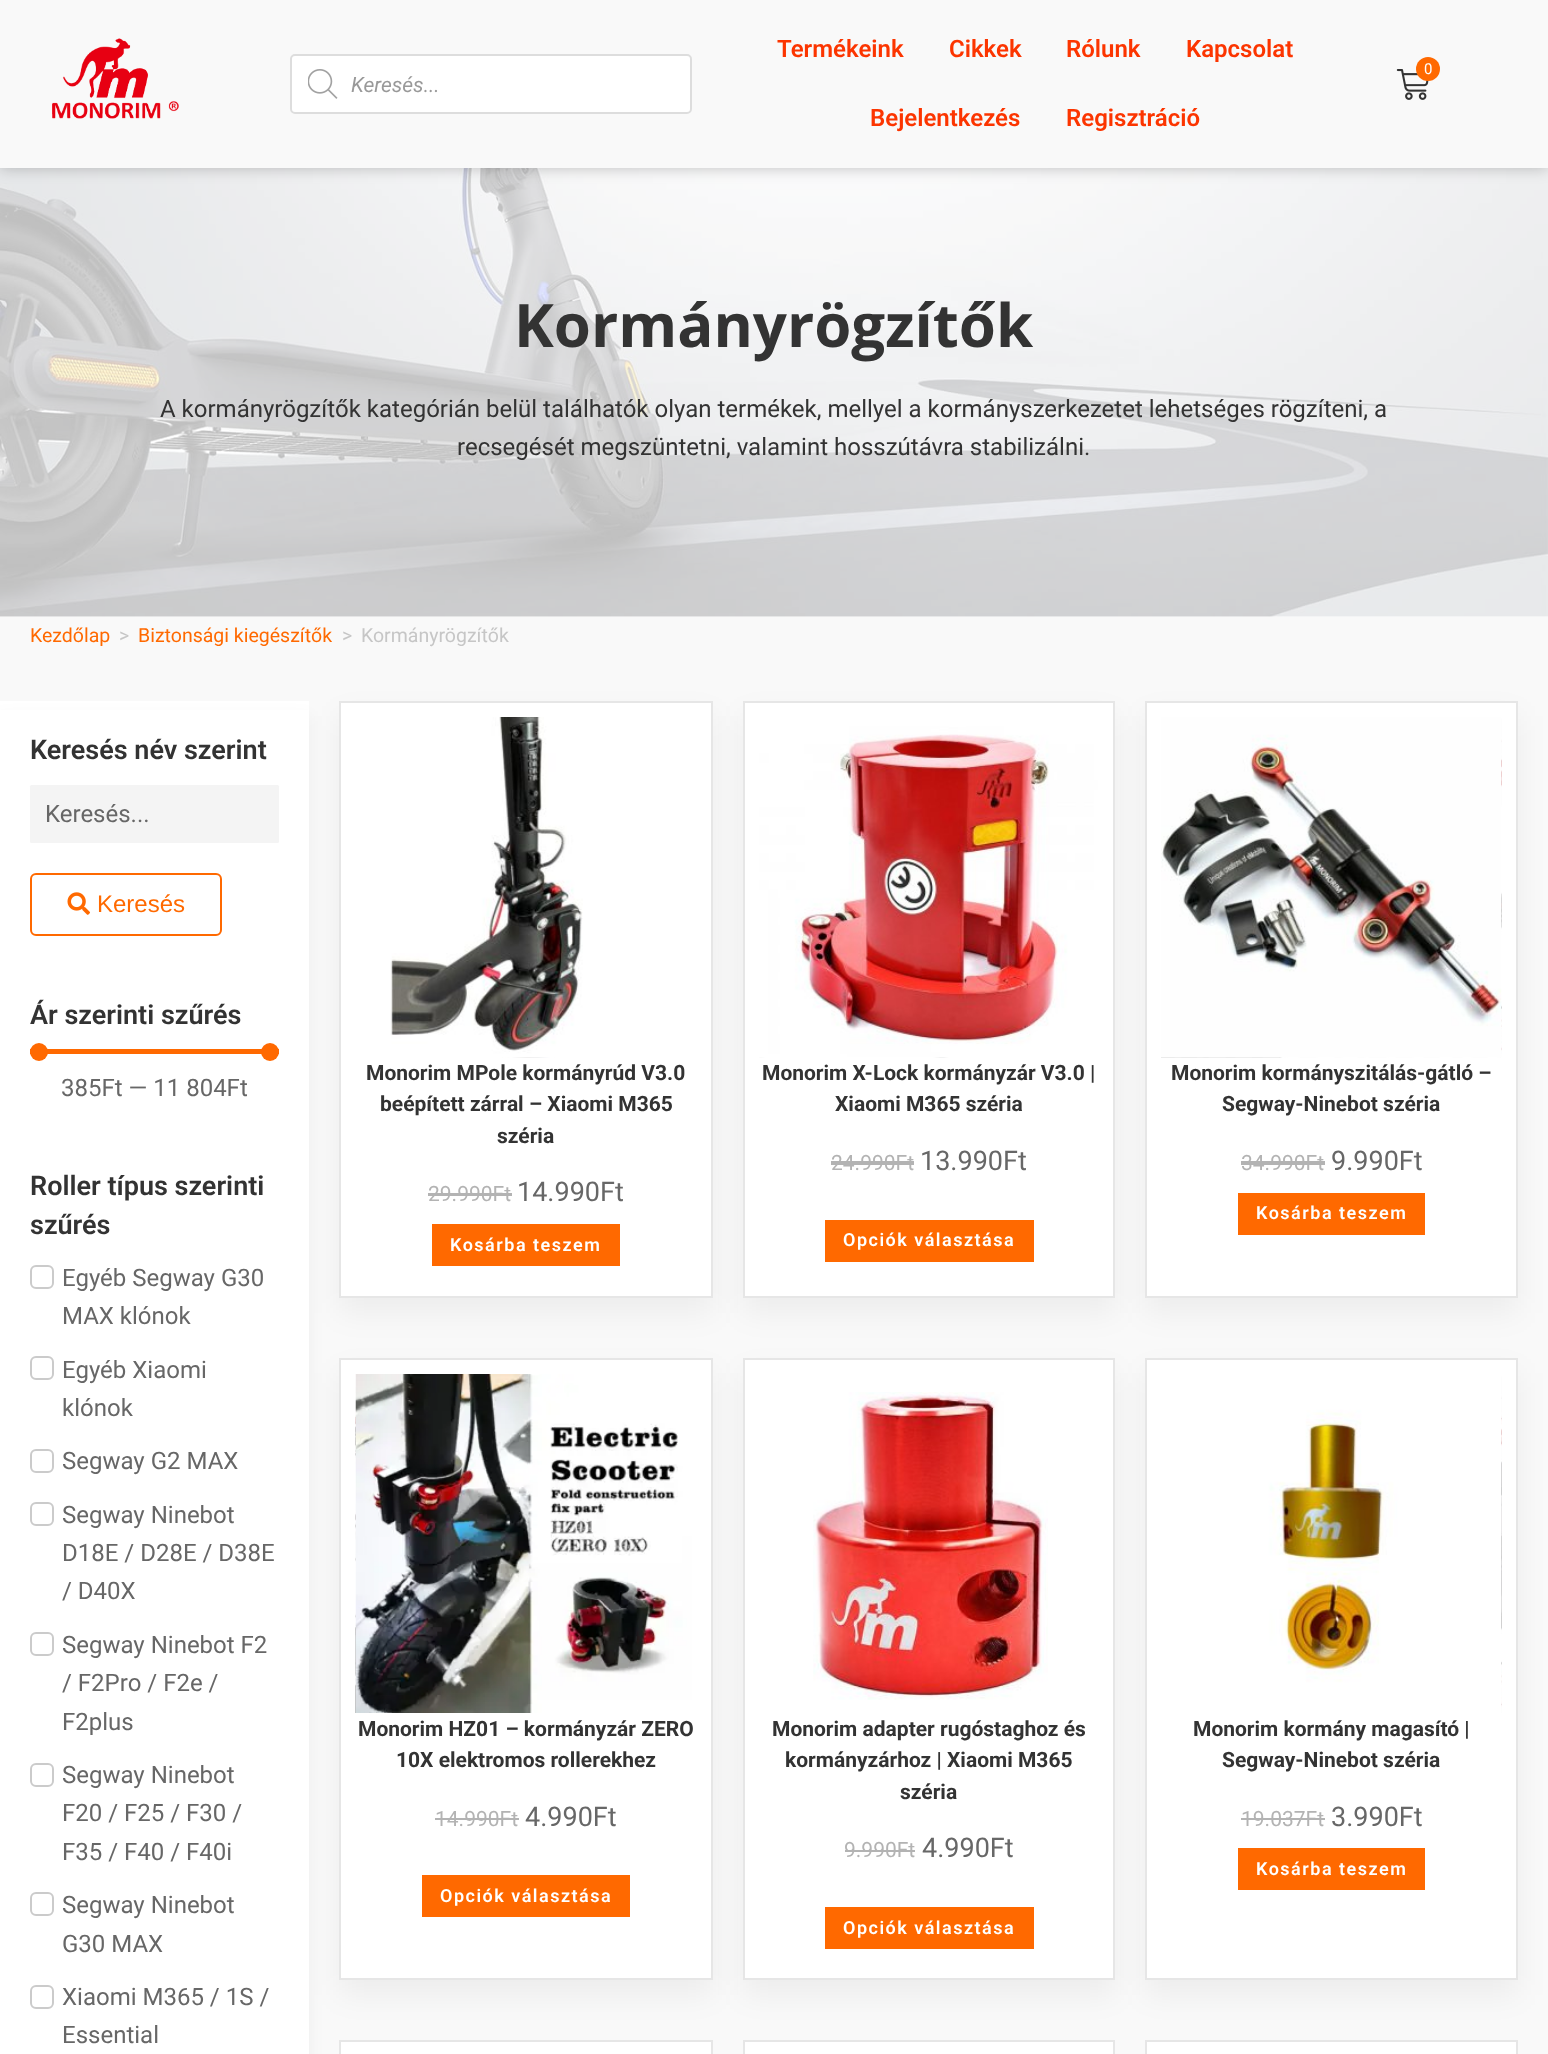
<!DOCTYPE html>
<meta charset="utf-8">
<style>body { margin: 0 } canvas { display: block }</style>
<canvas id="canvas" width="1548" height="2054"></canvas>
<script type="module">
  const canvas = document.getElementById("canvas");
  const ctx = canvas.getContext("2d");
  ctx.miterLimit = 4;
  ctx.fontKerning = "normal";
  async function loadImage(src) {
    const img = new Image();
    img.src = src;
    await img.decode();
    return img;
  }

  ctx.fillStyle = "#ffffff";
  ctx.fillRect(0, 0, 1548, 2054);
  ctx.drawImage(await loadImage("img4.png"), 0, 168, 1548, 449);
  ctx.fillStyle = "rgba(0, 0, 0, 0.23)";
  ctx.filter = "blur(7.5px)";
  ctx.beginPath();
  ctx.rect(0, 0, 1548, 168);
  ctx.fill();
  ctx.filter = "none";
  ctx.fillStyle = "#f9f9f9";
  ctx.fillRect(0, 0, 1548, 168);
  ctx.drawImage(await loadImage("img1.png"), 52, 38, 127, 81);
  ctx.font = "600 24px Roboto";
  ctx.fillStyle = "#fc3500";
  ctx.fillText("Termékeink", 777, 57);
  ctx.fillText("Cikkek", 949, 57);
  ctx.fillText("Rólunk", 1066, 57);
  ctx.fillText("Kapcsolat", 1186, 57);
  ctx.fillText("Bejelentkezés", 870, 126);
  ctx.fillText("Regisztráció", 1066, 126);
  ctx.drawImage(await loadImage("img2.png"), 1396, 69, 33, 31);
  ctx.fillStyle = "#ff6900";
  ctx.beginPath();
  ctx.arc(1428, 69, 12, 0, Math.PI * 2);
  ctx.fill();
  ctx.font = "15px Roboto";
  ctx.fillStyle = "#ffffff";
  ctx.fillText("0", 1424, 74);
  ctx.beginPath();
  ctx.roundRect(291, 55, 400, 58, 4);
  ctx.fill();
  ctx.strokeStyle = "#dddddd";
  ctx.lineWidth = 2;
  ctx.stroke();
  ctx.drawImage(await loadImage("img3.png"), 308, 69, 30, 30);
  ctx.font = "italic 21px Roboto";
  ctx.fillStyle = "#999999";
  ctx.fillText("Keresés...", 351, 92);
  ctx.font = "bold 60px Open Sans";
  ctx.fillStyle = "#333333";
  ctx.fillText("Kormányrögzítők", 514, 347);
  ctx.font = "24px Roboto";
  ctx.fillText("A kormányrögzítők kategórián belül találhatók olyan termékek, mellyel a kormányszerkezetet lehetséges rögzíteni, a", 160, 417);
  ctx.fillText("recsegését megszüntetni, valamint hosszútávra stabilizálni.", 457, 455);
  ctx.fillStyle = "#f9f9f9";
  ctx.fillRect(0, 617, 1548, 84);
  ctx.font = "19.5px Roboto";
  ctx.fillStyle = "#ff6900";
  ctx.fillText("Kezdőlap", 30, 642);
  ctx.fillStyle = "#c6c6c6";
  ctx.fillText(">", 119, 642);
  ctx.fillStyle = "#ff6900";
  ctx.fillText("Biztonsági kiegészítők", 138, 642);
  ctx.fillStyle = "#c6c6c6";
  ctx.fillText(">", 342, 642);
  ctx.fillText("Kormányrögzítők", 361, 642);
  ctx.fillStyle = "#f9f9f9";
  ctx.fillRect(309, 701, 1239, 1353);
  ctx.fillStyle = "rgba(0, 0, 0, 0.05)";
  ctx.filter = "blur(7.5px)";
  ctx.beginPath();
  ctx.rect(0, 716, 309, 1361);
  ctx.fill();
  ctx.filter = "none";
  ctx.fillStyle = "#ffffff";
  ctx.fillRect(0, 710, 309, 1344);
  ctx.font = "600 27px Roboto";
  ctx.fillStyle = "#333333";
  ctx.fillText("Keresés név szerint", 30, 759);
  ctx.fillStyle = "#f4f4f4";
  ctx.beginPath();
  ctx.roundRect(30, 785, 249, 58, 1.5);
  ctx.fill();
  ctx.font = "24px Roboto";
  ctx.fillStyle = "#676767";
  ctx.fillText("Keresés...", 45, 822);
  ctx.beginPath();
  ctx.roundRect(31, 874, 190, 61, 5);
  ctx.strokeStyle = "#ff6900";
  ctx.stroke();
  ctx.drawImage(await loadImage("img5.png"), 67, 892, 23, 23);
  ctx.font = "24px Liberation Sans";
  ctx.fillStyle = "#ff6900";
  ctx.fillText("Keresés", 97, 912);
  ctx.font = "600 27px Roboto";
  ctx.fillStyle = "#333333";
  ctx.fillText("Ár szerinti szűrés", 30, 1024);
  ctx.fillStyle = "#ff6900";
  ctx.fillRect(30, 1049, 249, 5);
  ctx.beginPath();
  ctx.arc(39, 1052, 9, 0, Math.PI * 2);
  ctx.fill();
  ctx.beginPath();
  ctx.arc(270, 1052, 9, 0, Math.PI * 2);
  ctx.fill();
  ctx.font = "24px Roboto";
  ctx.fillStyle = "#676767";
  ctx.fillText("385Ft — 11 804Ft", 61, 1096);
  ctx.font = "600 27px Roboto";
  ctx.fillStyle = "#333333";
  ctx.fillText("Roller típus szerinti", 30, 1195);
  ctx.fillText("szűrés", 30, 1234);
  ctx.beginPath();
  ctx.roundRect(31, 1266, 22, 22, 5);
  ctx.strokeStyle = "#cbcbcb";
  ctx.stroke();
  ctx.font = "24px Roboto";
  ctx.fillStyle = "#676767";
  ctx.fillText("Egyéb Segway G30", 62, 1286);
  ctx.fillText("MAX klónok", 62, 1324);
  ctx.beginPath();
  ctx.roundRect(31, 1357, 22, 22, 5);
  ctx.stroke();
  ctx.fillText("Egyéb Xiaomi", 62, 1378);
  ctx.fillText("klónok", 62, 1416);
  ctx.beginPath();
  ctx.roundRect(31, 1450, 22, 22, 5);
  ctx.stroke();
  ctx.fillText("Segway G2 MAX", 62, 1469);
  ctx.beginPath();
  ctx.roundRect(31, 1503, 22, 22, 5);
  ctx.stroke();
  ctx.fillText("Segway Ninebot", 62, 1523);
  ctx.fillText("D18E / D28E / D38E", 62, 1561);
  ctx.fillText("/ D40X", 62, 1599);
  ctx.beginPath();
  ctx.roundRect(31, 1633, 22, 22, 5);
  ctx.stroke();
  ctx.fillText("Segway Ninebot F2", 62, 1653);
  ctx.fillText("/ F2Pro / F2e /", 62, 1691);
  ctx.fillText("F2plus", 62, 1730);
  ctx.beginPath();
  ctx.roundRect(31, 1764, 22, 22, 5);
  ctx.stroke();
  ctx.fillText("Segway Ninebot", 62, 1783);
  ctx.fillText("F20 / F25 / F30 /", 62, 1821);
  ctx.fillText("F35 / F40 / F40i", 62, 1860);
  ctx.beginPath();
  ctx.roundRect(31, 1893, 22, 22, 5);
  ctx.stroke();
  ctx.fillText("Segway Ninebot", 62, 1913);
  ctx.fillText("G30 MAX", 62, 1952);
  ctx.beginPath();
  ctx.roundRect(31, 1986, 22, 22, 5);
  ctx.stroke();
  ctx.fillText("Xiaomi M365 / 1S /", 62, 2005);
  ctx.fillText("Essential", 62, 2043);
  ctx.fillStyle = "rgba(0, 0, 0, 0.05)";
  ctx.filter = "blur(15px)";
  ctx.beginPath();
  ctx.rect(339, 716, 374, 597);
  ctx.fill();
  ctx.filter = "none";
  ctx.fillStyle = "#ffffff";
  ctx.beginPath();
  ctx.rect(340, 702, 372, 595);
  ctx.fill();
  ctx.strokeStyle = "#e6e6e6";
  ctx.stroke();
  ctx.drawImage(await loadImage("img6.png"), 390, 717, 193, 340);
  ctx.drawImage(await loadImage("img7.png"), 482, 1057, 73, 1);
  ctx.font = "bold 21px Roboto";
  ctx.fillStyle = "#333333";
  ctx.fillText("Monorim MPole kormányrúd V3.0", 366, 1080);
  ctx.fillText("beépített zárral – Xiaomi M365", 380, 1111);
  ctx.fillText("széria", 497, 1143);
  ctx.font = "21px Roboto";
  ctx.fillStyle = "#b3b3b3";
  ctx.fillText("29.990Ft", 428, 1201);
  ctx.fillRect(428, 1193, 64, 3);
  ctx.fillRect(492, 1193, 20, 3);
  ctx.font = "27px Roboto";
  ctx.fillStyle = "#676767";
  ctx.fillText("14.990Ft", 517, 1201);
  ctx.fillStyle = "#ff6900";
  ctx.fillRect(432, 1224, 188, 42);
  ctx.letterSpacing = "1.5px";
  ctx.font = "600 18px Roboto";
  ctx.fillStyle = "#ffffff";
  ctx.fillText("Kosárba teszem", 450, 1251);
  ctx.fillStyle = "rgba(0, 0, 0, 0.05)";
  ctx.filter = "blur(15px)";
  ctx.beginPath();
  ctx.rect(743, 716, 372, 597);
  ctx.fill();
  ctx.filter = "none";
  ctx.fillStyle = "#ffffff";
  ctx.beginPath();
  ctx.rect(744, 702, 370, 595);
  ctx.fill();
  ctx.stroke();
  ctx.drawImage(await loadImage("img8.png"), 759, 717, 339, 340);
  ctx.drawImage(await loadImage("img9.png"), 759, 1057, 339, 1);
  ctx.letterSpacing = "0px";
  ctx.font = "bold 21px Roboto";
  ctx.fillStyle = "#333333";
  ctx.fillText("Monorim X-Lock kormányzár V3.0 |", 762, 1080);
  ctx.fillText("Xiaomi M365 széria", 835, 1111);
  ctx.font = "21px Roboto";
  ctx.fillStyle = "#b3b3b3";
  ctx.fillText("24.990Ft", 831, 1170);
  ctx.fillRect(831, 1161, 65, 4);
  ctx.fillRect(896, 1161, 18, 4);
  ctx.font = "27px Roboto";
  ctx.fillStyle = "#676767";
  ctx.fillText("13.990Ft", 920, 1170);
  ctx.fillStyle = "#ff6900";
  ctx.fillRect(825, 1220, 209, 42);
  ctx.letterSpacing = "1.5px";
  ctx.font = "600 18px Roboto";
  ctx.fillStyle = "#ffffff";
  ctx.fillText("Opciók választása", 843, 1246);
  ctx.fillStyle = "rgba(0, 0, 0, 0.05)";
  ctx.filter = "blur(15px)";
  ctx.beginPath();
  ctx.rect(1145, 716, 373, 597);
  ctx.fill();
  ctx.filter = "none";
  ctx.fillStyle = "#ffffff";
  ctx.beginPath();
  ctx.rect(1146, 702, 371, 595);
  ctx.fill();
  ctx.stroke();
  ctx.drawImage(await loadImage("img10.png"), 1161, 717, 341, 341);
  ctx.drawImage(await loadImage("img11.png"), 1161, 717, 341, 341);
  ctx.letterSpacing = "0px";
  ctx.font = "bold 21px Roboto";
  ctx.fillStyle = "#333333";
  ctx.fillText("Monorim kormányszitálás-gátló –", 1171, 1080);
  ctx.fillText("Segway-Ninebot széria", 1222, 1111);
  ctx.font = "21px Roboto";
  ctx.fillStyle = "#b3b3b3";
  ctx.fillText("34.990Ft", 1241, 1170);
  ctx.fillRect(1241, 1161, 64, 4);
  ctx.fillRect(1305, 1161, 20, 4);
  ctx.font = "27px Roboto";
  ctx.fillStyle = "#676767";
  ctx.fillText("9.990Ft", 1331, 1170);
  ctx.fillStyle = "#ff6900";
  ctx.fillRect(1238, 1193, 187, 42);
  ctx.letterSpacing = "1.5px";
  ctx.font = "600 18px Roboto";
  ctx.fillStyle = "#ffffff";
  ctx.fillText("Kosárba teszem", 1256, 1219);
  ctx.fillStyle = "rgba(0, 0, 0, 0.05)";
  ctx.filter = "blur(15px)";
  ctx.beginPath();
  ctx.rect(339, 1373, 374, 622);
  ctx.fill();
  ctx.filter = "none";
  ctx.fillStyle = "#ffffff";
  ctx.beginPath();
  ctx.rect(340, 1359, 372, 620);
  ctx.fill();
  ctx.stroke();
  ctx.drawImage(await loadImage("img12.png"), 355, 1374, 1, 339);
  ctx.drawImage(await loadImage("img13.png"), 355, 1374, 341, 339);
  ctx.letterSpacing = "0px";
  ctx.font = "bold 21px Roboto";
  ctx.fillStyle = "#333333";
  ctx.fillText("Monorim HZ01 – kormányzár ZERO", 358, 1736);
  ctx.fillText("10X elektromos rollerekhez", 396, 1767);
  ctx.font = "21px Roboto";
  ctx.fillStyle = "#b3b3b3";
  ctx.fillText("14.990Ft", 435, 1826);
  ctx.fillRect(435, 1818, 84, 2);
  ctx.font = "27px Roboto";
  ctx.fillStyle = "#676767";
  ctx.fillText("4.990Ft", 525, 1826);
  ctx.fillStyle = "#ff6900";
  ctx.fillRect(422, 1875, 208, 42);
  ctx.letterSpacing = "1.5px";
  ctx.font = "600 18px Roboto";
  ctx.fillStyle = "#ffffff";
  ctx.fillText("Opciók választása", 440, 1902);
  ctx.fillStyle = "rgba(0, 0, 0, 0.05)";
  ctx.filter = "blur(15px)";
  ctx.beginPath();
  ctx.rect(743, 1373, 372, 622);
  ctx.fill();
  ctx.filter = "none";
  ctx.fillStyle = "#ffffff";
  ctx.beginPath();
  ctx.rect(744, 1359, 370, 620);
  ctx.fill();
  ctx.stroke();
  ctx.drawImage(await loadImage("img14.png"), 813, 1392, 235, 308);
  ctx.letterSpacing = "0px";
  ctx.font = "bold 21px Roboto";
  ctx.fillStyle = "#333333";
  ctx.fillText("Monorim adapter rugóstaghoz és", 772, 1736);
  ctx.fillText("kormányzárhoz | Xiaomi M365", 785, 1767);
  ctx.fillText("széria", 900, 1799);
  ctx.font = "21px Roboto";
  ctx.fillStyle = "#b3b3b3";
  ctx.fillText("9.990Ft", 844, 1857);
  ctx.fillRect(845, 1850, 70, 2);
  ctx.font = "27px Roboto";
  ctx.fillStyle = "#676767";
  ctx.fillText("4.990Ft", 922, 1857);
  ctx.fillStyle = "#ff6900";
  ctx.fillRect(825, 1907, 209, 42);
  ctx.letterSpacing = "1.5px";
  ctx.font = "600 18px Roboto";
  ctx.fillStyle = "#ffffff";
  ctx.fillText("Opciók választása", 843, 1934);
  ctx.fillStyle = "rgba(0, 0, 0, 0.05)";
  ctx.filter = "blur(15px)";
  ctx.beginPath();
  ctx.rect(1145, 1373, 373, 622);
  ctx.fill();
  ctx.filter = "none";
  ctx.fillStyle = "#ffffff";
  ctx.beginPath();
  ctx.rect(1146, 1359, 371, 620);
  ctx.fill();
  ctx.stroke();
  ctx.drawImage(await loadImage("img16.png"), 1501, 1374, 1, 339);
  ctx.drawImage(await loadImage("img15.png"), 1161, 1374, 341, 339);
  ctx.letterSpacing = "0px";
  ctx.font = "bold 21px Roboto";
  ctx.fillStyle = "#333333";
  ctx.fillText("Monorim kormány magasító |", 1193, 1736);
  ctx.fillText("Segway-Ninebot széria", 1222, 1767);
  ctx.font = "21px Roboto";
  ctx.fillStyle = "#b3b3b3";
  ctx.fillText("19.037Ft", 1241, 1826);
  ctx.fillRect(1241, 1818, 84, 2);
  ctx.font = "27px Roboto";
  ctx.fillStyle = "#676767";
  ctx.fillText("3.990Ft", 1331, 1826);
  ctx.fillStyle = "#ff6900";
  ctx.fillRect(1238, 1848, 187, 42);
  ctx.letterSpacing = "1.5px";
  ctx.font = "600 18px Roboto";
  ctx.fillStyle = "#ffffff";
  ctx.fillText("Kosárba teszem", 1256, 1875);
  ctx.beginPath();
  ctx.rect(340, 2041, 372, 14);
  ctx.fill();
  ctx.stroke();
  ctx.beginPath();
  ctx.rect(744, 2041, 370, 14);
  ctx.fill();
  ctx.stroke();
  ctx.beginPath();
  ctx.rect(1146, 2041, 371, 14);
  ctx.fill();
  ctx.stroke();
</script>
